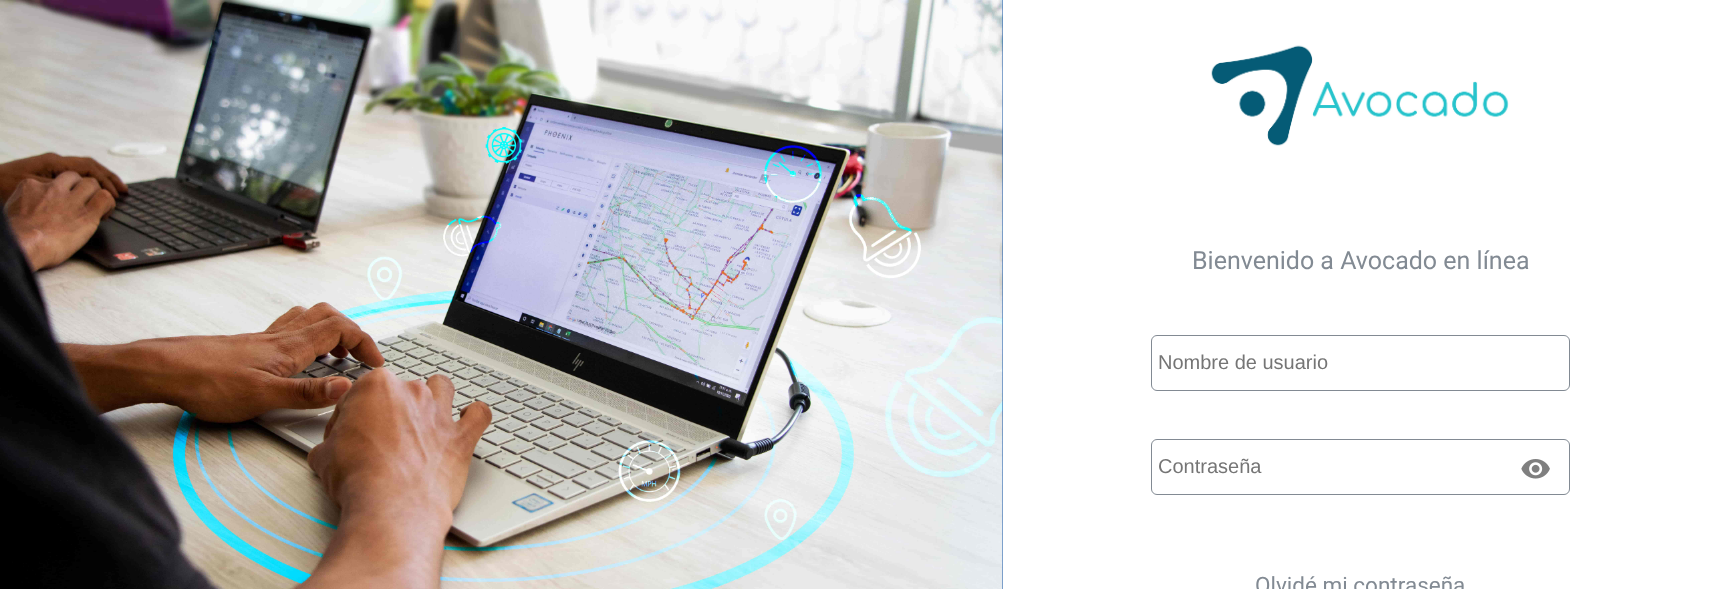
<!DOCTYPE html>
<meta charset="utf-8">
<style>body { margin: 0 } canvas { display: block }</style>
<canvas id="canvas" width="1718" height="589"></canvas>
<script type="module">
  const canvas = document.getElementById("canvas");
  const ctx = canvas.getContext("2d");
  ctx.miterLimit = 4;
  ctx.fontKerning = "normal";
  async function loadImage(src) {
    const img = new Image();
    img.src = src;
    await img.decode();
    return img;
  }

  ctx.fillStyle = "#ffffff";
  ctx.fillRect(0, 0, 1718, 589);
  ctx.fillStyle = "#1255a6";
  ctx.fillRect(1002, 0, 1, 589);
  ctx.drawImage(await loadImage("img1.png"), 0, 0, 1003, 589);
  ctx.drawImage(await loadImage("img2.png"), 1211, 45, 298, 101);
  ctx.font = "25px Roboto";
  ctx.fillStyle = "#828a93";
  ctx.fillText("Bienvenido a Avocado en línea", 1192, 269);
  ctx.beginPath();
  ctx.roundRect(1151.5, 335.5, 418, 55, 5.5);
  ctx.strokeStyle = "#828a93";
  ctx.stroke();
  ctx.font = "20px Liberation Sans";
  ctx.fillStyle = "#757575";
  ctx.fillText("Nombre de usuario", 1158, 369);
  ctx.beginPath();
  ctx.roundRect(1151.5, 439.5, 418, 55, 5.5);
  ctx.stroke();
  ctx.fillText("Contraseña", 1158, 473);
  ctx.drawImage(await loadImage("img3.png"), 1521, 459, 29, 20);
  ctx.font = "22.5px Roboto";
  ctx.fillStyle = "#828a93";
  ctx.fillText("Olvidé mi contraseña", 1255, 593);
</script>
